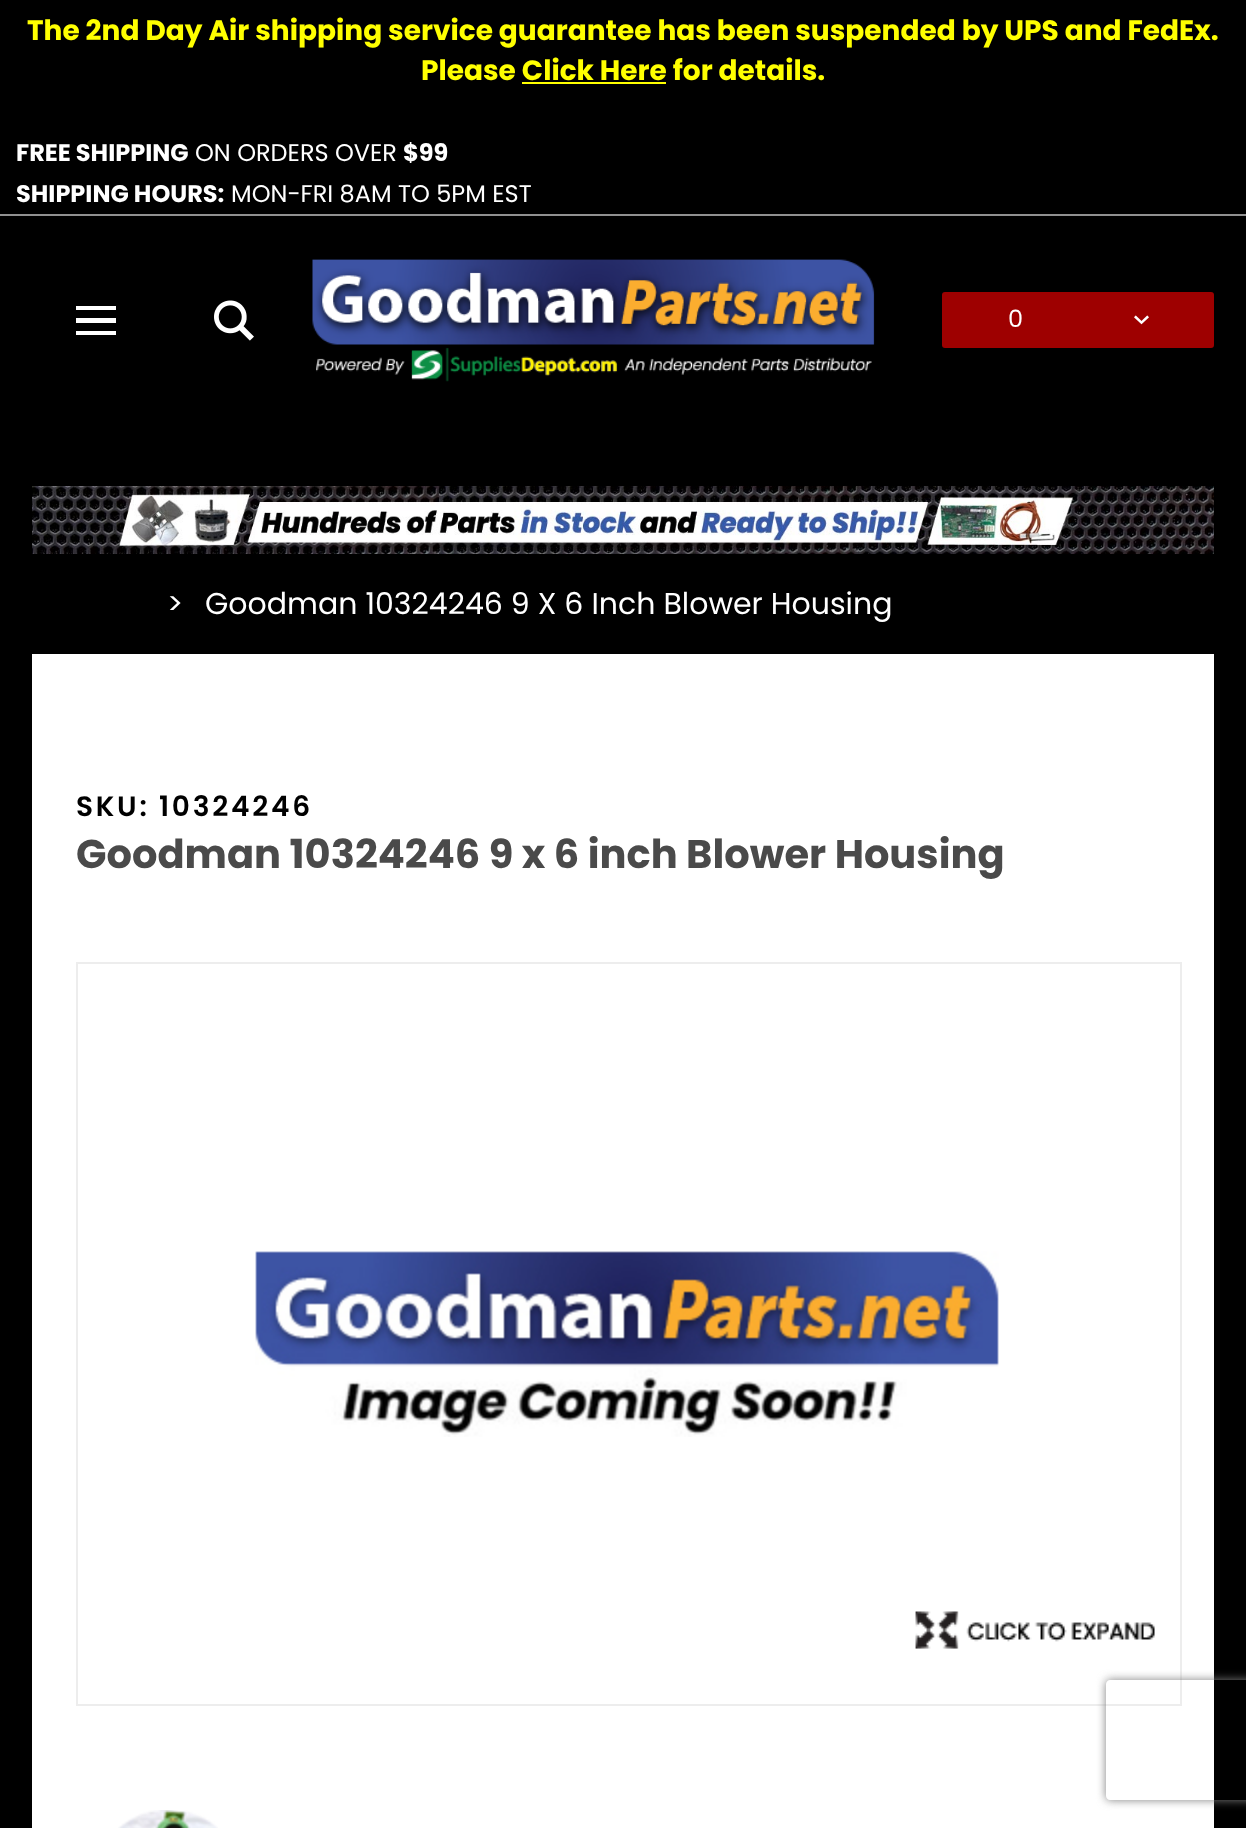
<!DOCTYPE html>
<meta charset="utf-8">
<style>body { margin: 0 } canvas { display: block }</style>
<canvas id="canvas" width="1246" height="1828"></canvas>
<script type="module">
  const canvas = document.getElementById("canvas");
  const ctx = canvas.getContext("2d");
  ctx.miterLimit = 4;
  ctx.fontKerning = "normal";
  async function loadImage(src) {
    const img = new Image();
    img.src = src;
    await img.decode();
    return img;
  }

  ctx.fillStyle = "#000000";
  ctx.fillRect(0, 0, 1246, 1828);
  ctx.font = "bold 28px Poppins";
  ctx.fillStyle = "#ffff00";
  ctx.fillText("The 2nd Day Air shipping service guarantee has been suspended by UPS and FedEx.", 27, 40);
  ctx.fillText("Please Click Here for details.", 421, 80);
  ctx.fillRect(522, 82, 144, 2);
  ctx.fillStyle = "#909090";
  ctx.fillRect(0, 214, 1246, 2);
  ctx.font = "bold 24px Poppins";
  ctx.fillStyle = "#ffffff";
  ctx.fillText("FREE SHIPPING", 16, 161);
  ctx.font = "24px Poppins";
  ctx.fillText("ON ORDERS OVER", 195, 161);
  ctx.font = "bold 24px Poppins";
  ctx.fillText("$99", 403, 161);
  ctx.fillText("SHIPPING HOURS:", 16, 202);
  ctx.font = "24px Poppins";
  ctx.fillText("MON-FRI 8AM TO 5PM EST", 231, 202);
  ctx.beginPath();
  ctx.moveTo(76, 331);
  ctx.lineTo(76, 335);
  ctx.lineTo(116, 335);
  ctx.lineTo(116, 331);
  ctx.closePath();
  ctx.moveTo(76, 318);
  ctx.lineTo(76, 323);
  ctx.lineTo(116, 323);
  ctx.lineTo(116, 318);
  ctx.closePath();
  ctx.moveTo(76, 306);
  ctx.lineTo(76, 310);
  ctx.lineTo(116, 310);
  ctx.lineTo(116, 306);
  ctx.closePath();
  ctx.fill();
  ctx.drawImage(await loadImage("img1.png"), 214, 300, 40, 41);
  ctx.drawImage(await loadImage("img2.png"), 312, 259, 563, 123);
  ctx.fillStyle = "#9e0000";
  ctx.beginPath();
  ctx.roundRect(942, 292, 272, 56, 3);
  ctx.fill();
  ctx.fillStyle = "#ffffff";
  ctx.fillText("0", 1008, 327);
  ctx.font = "15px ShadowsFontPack";
  ctx.fillText("1", 1134, 326);
  ctx.drawImage(await loadImage("img3.png"), 32, 486, 1182, 68);
  ctx.font = "30px Poppins";
  ctx.fillText(">", 167, 614);
  ctx.fillText("Goodman 10324246 9 X 6 Inch Blower Housing", 205, 614);
  ctx.fillRect(32, 654, 1182, 1174);
  ctx.letterSpacing = "2.75px";
  ctx.font = "600 28px Poppins";
  ctx.fillStyle = "#000000";
  ctx.fillText("SKU: 10324246", 76, 816);
  ctx.letterSpacing = "0px";
  ctx.font = "bold 40px Poppins";
  ctx.fillStyle = "#4a4a4a";
  ctx.fillText("Goodman 10324246 9 x 6 inch Blower Housing", 76, 868);
  ctx.strokeStyle = "#ededed";
  ctx.lineWidth = 2;
  ctx.strokeRect(77, 963, 1104, 742);
  ctx.drawImage(await loadImage("img4.png"), 255, 1251, 744, 186);
  ctx.drawImage(await loadImage("img5.png"), 915, 1611, 240, 38);
  ctx.drawImage(await loadImage("img6.png"), 118, 1810, 100, 18);
  ctx.save();
  ctx.beginPath();
  ctx.moveTo(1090, 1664);
  ctx.lineTo(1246, 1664);
  ctx.lineTo(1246, 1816);
  ctx.lineTo(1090, 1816);
  ctx.closePath();
  ctx.moveTo(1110, 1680);
  ctx.lineTo(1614, 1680);
  ctx.bezierCurveTo(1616, 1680, 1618, 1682, 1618, 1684);
  ctx.lineTo(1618, 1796);
  ctx.bezierCurveTo(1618, 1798, 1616, 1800, 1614, 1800);
  ctx.lineTo(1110, 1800);
  ctx.bezierCurveTo(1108, 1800, 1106, 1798, 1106, 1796);
  ctx.lineTo(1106, 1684);
  ctx.bezierCurveTo(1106, 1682, 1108, 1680, 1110, 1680);
  ctx.closePath();
  ctx.clip("evenodd");
  ctx.fillStyle = "#808080";
  ctx.filter = "blur(5px)";
  ctx.beginPath();
  ctx.roundRect(1106, 1680, 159, 120, 4);
  ctx.fill();
  ctx.filter = "none";
  ctx.restore();
</script>
